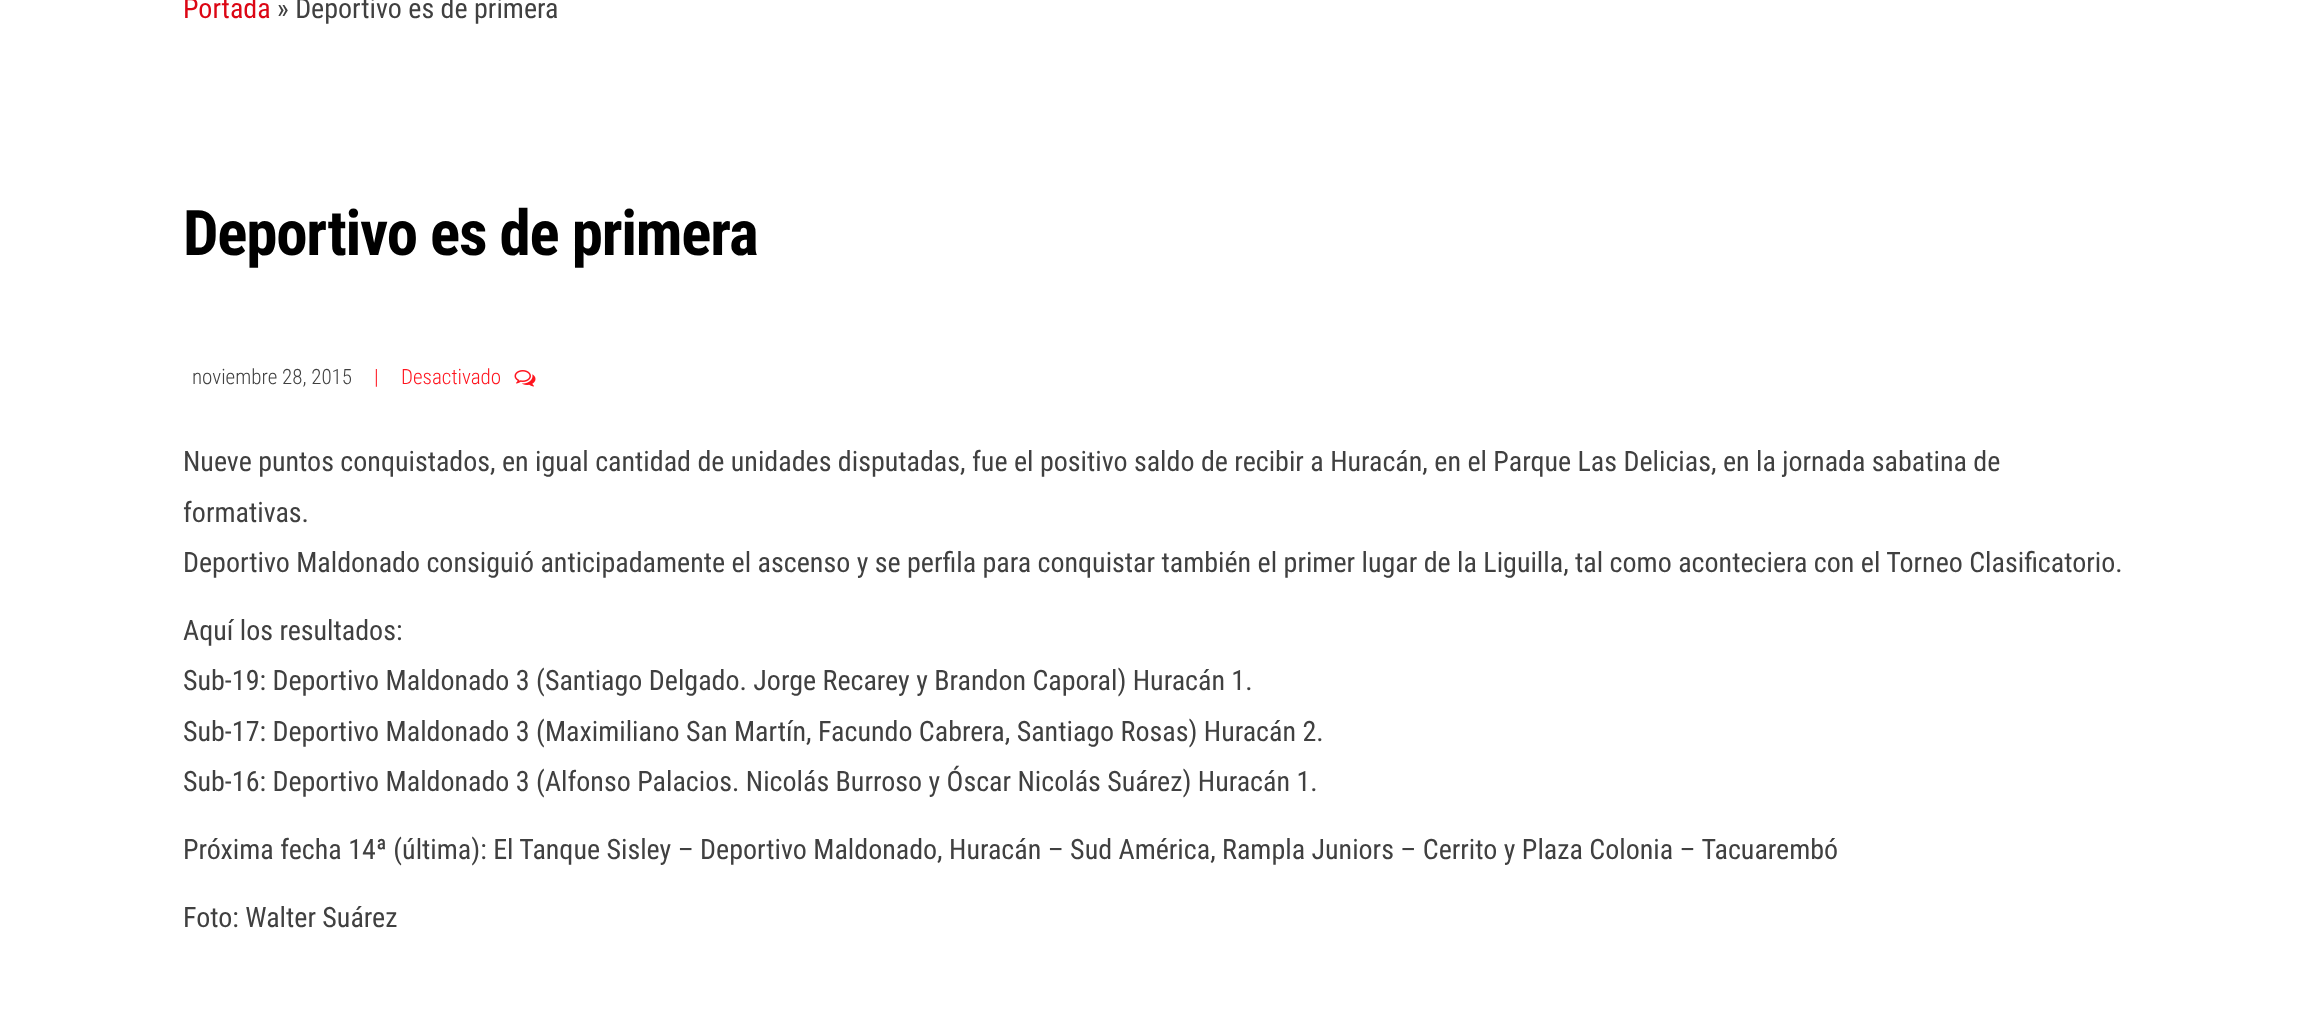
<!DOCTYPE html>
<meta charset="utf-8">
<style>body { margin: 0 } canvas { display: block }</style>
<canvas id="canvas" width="2307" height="1017"></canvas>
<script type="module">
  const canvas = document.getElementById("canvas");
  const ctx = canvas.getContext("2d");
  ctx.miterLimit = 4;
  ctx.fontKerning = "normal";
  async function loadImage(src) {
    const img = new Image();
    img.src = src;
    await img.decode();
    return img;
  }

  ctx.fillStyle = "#ffffff";
  ctx.fillRect(0, 0, 2307, 1017);
  ctx.font = "28px Roboto Condensed";
  ctx.fillStyle = "#dc0614";
  ctx.fillText("Portada", 183, 18);
  ctx.fillStyle = "#404040";
  ctx.fillText("» Deportivo es de primera", 277, 18);
  ctx.letterSpacing = "-1.25px";
  ctx.font = "bold 63px Roboto Condensed";
  ctx.fillStyle = "#000000";
  ctx.fillText("Deportivo es de primera", 183, 255);
  ctx.letterSpacing = "0px";
  ctx.font = "300 21px Roboto Condensed";
  ctx.fillStyle = "#404040";
  ctx.fillText("noviembre 28, 2015", 192, 384);
  ctx.fillStyle = "#ff151f";
  ctx.fillText("|", 374, 384);
  ctx.fillText("Desactivado", 401, 384);
  ctx.drawImage(await loadImage("img1.png"), 514, 370, 22, 17);
  ctx.font = "28px Roboto Condensed";
  ctx.fillStyle = "#404040";
  ctx.fillText("Nueve puntos conquistados, en igual cantidad de unidades disputadas, fue el positivo saldo de recibir a Huracán, en el Parque Las Delicias, en la jornada sabatina de", 183, 471);
  ctx.fillText("formativas.", 183, 522);
  ctx.fillText("Deportivo Maldonado consiguió anticipadamente el ascenso y se perfila para conquistar también el primer lugar de la Liguilla, tal como aconteciera con el Torneo Clasificatorio.", 183, 572);
  ctx.fillText("Aquí los resultados:", 183, 640);
  ctx.fillText("Sub-19: Deportivo Maldonado 3 (Santiago Delgado. Jorge Recarey y Brandon Caporal) Huracán 1.", 183, 690);
  ctx.fillText("Sub-17: Deportivo Maldonado 3 (Maximiliano San Martín, Facundo Cabrera, Santiago Rosas) Huracán 2.", 183, 741);
  ctx.fillText("Sub-16: Deportivo Maldonado 3 (Alfonso Palacios. Nicolás Burroso y Óscar Nicolás Suárez) Huracán 1.", 183, 791);
  ctx.fillText("Próxima fecha 14ª (última): El Tanque Sisley – Deportivo Maldonado, Huracán – Sud América, Rampla Juniors – Cerrito y Plaza Colonia – Tacuarembó", 183, 859);
  ctx.fillText("Foto: Walter Suárez", 183, 927);
</script>
